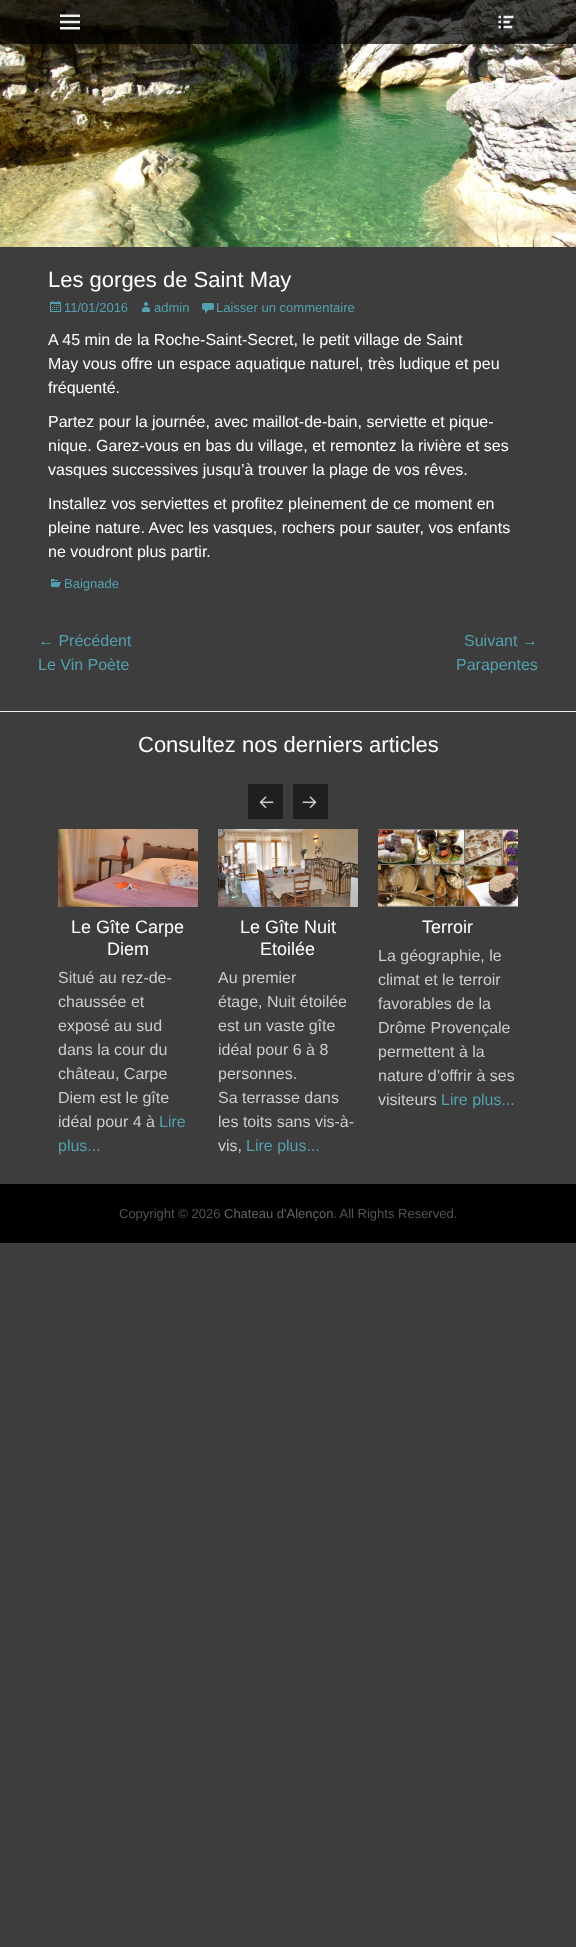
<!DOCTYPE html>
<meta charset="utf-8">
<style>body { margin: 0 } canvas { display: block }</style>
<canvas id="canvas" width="576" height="1947"></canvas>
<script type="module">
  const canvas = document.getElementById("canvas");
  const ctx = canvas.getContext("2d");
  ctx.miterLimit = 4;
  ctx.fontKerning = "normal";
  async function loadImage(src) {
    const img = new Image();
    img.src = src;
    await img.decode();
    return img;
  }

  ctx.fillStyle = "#3d3d3d";
  ctx.fillRect(0, 0, 576, 1947);
  ctx.drawImage(await loadImage("img1.png"), 0, 0, 576, 247);
  ctx.fillStyle = "rgba(0, 0, 0, 0.7)";
  ctx.fillRect(0, 0, 576, 44);
  ctx.drawImage(await loadImage("img2.png"), 60, 14, 20, 16);
  ctx.drawImage(await loadImage("img3.png"), 498, 15, 16, 14);
  ctx.font = "22px Liberation Sans";
  ctx.fillStyle = "#ffffff";
  ctx.fillText("Les gorges de Saint May", 48, 287);
  ctx.drawImage(await loadImage("img4.png"), 50, 301, 11, 11);
  ctx.font = "13px Liberation Sans";
  ctx.fillStyle = "#54a0af";
  ctx.fillText("11/01/2016", 64, 312);
  ctx.drawImage(await loadImage("img5.png"), 142, 302, 8, 10);
  ctx.fillText("admin", 154, 312);
  ctx.drawImage(await loadImage("img6.png"), 202, 303, 12, 11);
  ctx.fillText("Laisser un commentaire", 216, 312);
  ctx.font = "16px Liberation Sans";
  ctx.fillStyle = "#ffffff";
  ctx.fillText("A 45 min de la Roche-Saint-Secret, le petit village de Saint", 48, 345);
  ctx.fillText("May vous offre un espace aquatique naturel, très ludique et peu", 48, 369);
  ctx.fillText("fréquenté.", 48, 393);
  ctx.fillText("Partez pour la journée, avec maillot-de-bain, serviette et pique-", 48, 427);
  ctx.fillText("nique. Garez-vous en bas du village, et remontez la rivière et ses", 48, 451);
  ctx.fillText("vasques successives jusqu’à trouver la plage de vos rêves.", 48, 475);
  ctx.fillText("Installez vos serviettes et profitez pleinement de ce moment en", 48, 509);
  ctx.fillText("pleine nature. Avec les vasques, rochers pour sauter, vos enfants", 48, 533);
  ctx.fillText("ne voudront plus partir.", 48, 557);
  ctx.drawImage(await loadImage("img7.png"), 51, 579, 10, 8);
  ctx.font = "13px Liberation Sans";
  ctx.fillStyle = "#54a0af";
  ctx.fillText("Baignade", 64, 588);
  ctx.font = "16px Liberation Sans";
  ctx.fillText("← Précédent", 38, 646);
  ctx.fillText("Le Vin Poète", 38, 670);
  ctx.fillText("Suivant →", 464, 646);
  ctx.fillText("Parapentes", 456, 670);
  ctx.fillStyle = "#eeeeee";
  ctx.fillRect(0, 711, 576, 1);
  ctx.font = "22px Liberation Sans";
  ctx.fillStyle = "#ffffff";
  ctx.fillText("Consultez nos derniers articles", 138, 752);
  ctx.fillStyle = "#1f1f1f";
  ctx.fillRect(248, 784, 35, 35);
  ctx.drawImage(await loadImage("img8.png"), 259, 796, 15, 13);
  ctx.fillRect(293, 784, 35, 35);
  ctx.drawImage(await loadImage("img9.png"), 302, 796, 15, 13);
  ctx.drawImage(await loadImage("img10.png"), 58, 829, 140, 78);
  ctx.font = "18px Liberation Sans";
  ctx.fillStyle = "#ffffff";
  ctx.fillText("Le Gîte Carpe", 71, 933);
  ctx.fillText("Diem", 107, 955);
  ctx.font = "16px Liberation Sans";
  ctx.fillStyle = "#cccccc";
  ctx.fillText("Situé au rez-de-", 58, 983);
  ctx.fillText("chaussée et", 58, 1007);
  ctx.fillText("exposé au sud", 58, 1031);
  ctx.fillText("dans la cour du", 58, 1055);
  ctx.fillText("château, Carpe", 58, 1079);
  ctx.fillText("Diem est le gîte", 58, 1103);
  ctx.fillText("idéal pour 4 à", 58, 1127);
  ctx.fillStyle = "#54a0af";
  ctx.fillText("Lire", 159, 1127);
  ctx.fillText("plus...", 58, 1151);
  ctx.drawImage(await loadImage("img11.png"), 218, 829, 140, 78);
  ctx.font = "18px Liberation Sans";
  ctx.fillStyle = "#ffffff";
  ctx.fillText("Le Gîte Nuit", 240, 933);
  ctx.fillText("Etoilée", 260, 955);
  ctx.font = "16px Liberation Sans";
  ctx.fillStyle = "#cccccc";
  ctx.fillText("Au premier", 218, 983);
  ctx.fillText("étage, Nuit étoilée", 218, 1007);
  ctx.fillText("est un vaste gîte", 218, 1031);
  ctx.fillText("idéal pour 6 à 8", 218, 1055);
  ctx.fillText("personnes.", 218, 1079);
  ctx.fillText("Sa terrasse dans", 218, 1103);
  ctx.fillText("les toits sans vis-à-", 218, 1127);
  ctx.fillText("vis,", 218, 1151);
  ctx.fillStyle = "#54a0af";
  ctx.fillText("Lire plus...", 246, 1151);
  ctx.drawImage(await loadImage("img12.png"), 378, 829, 140, 78);
  ctx.font = "18px Liberation Sans";
  ctx.fillStyle = "#ffffff";
  ctx.fillText("Terroir", 422, 933);
  ctx.font = "16px Liberation Sans";
  ctx.fillStyle = "#cccccc";
  ctx.fillText("La géographie, le", 378, 961);
  ctx.fillText("climat et le terroir", 378, 985);
  ctx.fillText("favorables de la", 378, 1009);
  ctx.fillText("Drôme Provençale", 378, 1033);
  ctx.fillText("permettent à la", 378, 1057);
  ctx.fillText("nature d’offrir à ses", 378, 1081);
  ctx.fillText("visiteurs", 378, 1105);
  ctx.fillStyle = "#54a0af";
  ctx.fillText("Lire plus...", 441, 1105);
  ctx.fillStyle = "#000000";
  ctx.fillRect(0, 1184, 576, 59);
  ctx.font = "13px Liberation Sans";
  ctx.fillStyle = "#555555";
  ctx.fillText("Copyright © 2026", 119, 1218);
  ctx.fillStyle = "#666666";
  ctx.fillText("Chateau d'Alençon", 224, 1218);
  ctx.fillStyle = "#555555";
  ctx.fillText(". All Rights Reserved.", 333, 1218);
</script>
